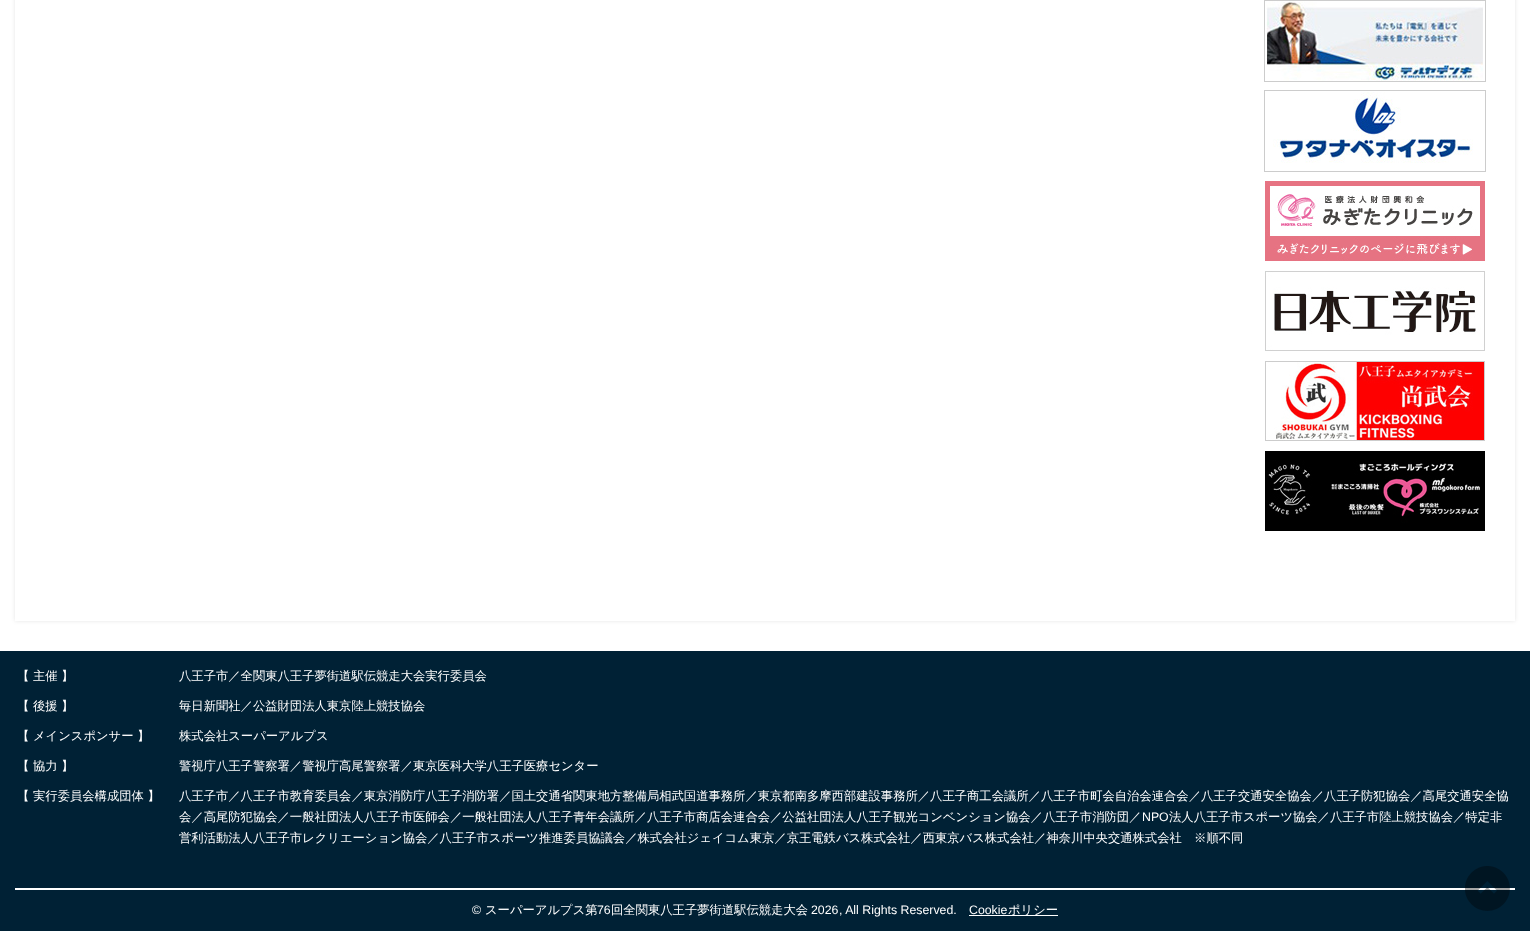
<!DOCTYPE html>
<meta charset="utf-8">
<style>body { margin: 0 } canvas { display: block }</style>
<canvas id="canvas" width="1530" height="931"></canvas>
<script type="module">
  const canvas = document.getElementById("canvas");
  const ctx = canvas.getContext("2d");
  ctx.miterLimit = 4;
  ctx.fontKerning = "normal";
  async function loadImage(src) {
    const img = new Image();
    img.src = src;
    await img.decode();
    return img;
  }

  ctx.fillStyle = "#ffffff";
  ctx.fillRect(0, 0, 1530, 931);
  ctx.save();
  ctx.beginPath();
  ctx.moveTo(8, 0);
  ctx.lineTo(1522, 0);
  ctx.lineTo(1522, 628);
  ctx.lineTo(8, 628);
  ctx.closePath();
  ctx.moveTo(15, -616);
  ctx.lineTo(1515, -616);
  ctx.lineTo(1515, 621);
  ctx.lineTo(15, 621);
  ctx.closePath();
  ctx.clip("evenodd");
  ctx.fillStyle = "rgba(0, 0, 0, 0.1)";
  ctx.filter = "blur(2px)";
  ctx.beginPath();
  ctx.rect(15, -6, 1500, 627);
  ctx.fill();
  ctx.filter = "none";
  ctx.restore();
  ctx.drawImage(await loadImage("img1.png"), 1266, 1, 217, 80);
  ctx.strokeStyle = "#cccccc";
  ctx.strokeRect(1264.5, 0.5, 221, 81);
  ctx.drawImage(await loadImage("img2.png"), 1273, 92, 200, 71);
  ctx.strokeRect(1264.5, 90.5, 221, 81);
  ctx.drawImage(await loadImage("img3.png"), 1265, 181, 220, 80);
  ctx.drawImage(await loadImage("img4.png"), 1265, 271, 220, 80);
  ctx.drawImage(await loadImage("img5.png"), 1265, 361, 220, 80);
  ctx.drawImage(await loadImage("img6.png"), 1265, 451, 220, 80);
  ctx.fillStyle = "#002135";
  ctx.fillRect(0, 651, 1530, 280);
  ctx.font = "500 12.32px WenQuanYi Zen Hei";
  ctx.fillStyle = "#ffffff";
  ctx.fillText("【 主催 】", 17, 680);
  ctx.fillText("八王子市／全関東八王子夢街道駅伝競走大会実行委員会", 179, 680);
  ctx.fillText("【 後援 】", 17, 710);
  ctx.fillText("毎日新聞社／公益財団法人東京陸上競技協会", 179, 710);
  ctx.fillText("【 メインスポンサー 】", 17, 740);
  ctx.fillText("株式会社スーパーアルプス", 179, 740);
  ctx.fillText("【 協力 】", 17, 770);
  ctx.fillText("警視庁八王子警察署／警視庁高尾警察署／東京医科大学八王子医療センター", 179, 770);
  ctx.fillText("【 実行委員会構成団体 】", 17, 800);
  ctx.fillText("八王子市／八王子市教育委員会／東京消防庁八王子消防署／国土交通省関東地方整備局相武国道事務所／東京都南多摩西部建設事務所／八王子商工会議所／八王子市町会自治会連合会／八王子交通安全協会／八王子防犯協会／高尾交通安全協", 179, 800);
  ctx.fillText("会／高尾防犯協会／一般社団法人八王子市医師会／一般社団法人八王子青年会議所／八王子市商店会連合会／公益社団法人八王子観光コンベンション協会／八王子市消防団／", 179, 821);
  ctx.font = "12.32px Liberation Sans";
  ctx.fillText("NPO", 1142, 821);
  ctx.font = "500 12.32px WenQuanYi Zen Hei";
  ctx.fillText("法人八王子市スポーツ協会／八王子市陸上競技協会／特定非", 1169, 821);
  ctx.fillText("営利活動法人八王子市レクリエーション協会／八王子市スポーツ推進委員協議会／株式会社ジェイコム東京／京王電鉄バス株式会社／西東京バス株式会社／神奈川中央交通株式会社　※順不同", 179, 842);
  ctx.fillRect(15, 888, 1500, 2);
  ctx.font = "12.32px Liberation Sans";
  ctx.fillText("©", 472, 914);
  ctx.font = "500 12.32px WenQuanYi Zen Hei";
  ctx.fillText("スーパーアルプス第", 485, 914);
  ctx.font = "12.32px Liberation Sans";
  ctx.fillText("76", 597, 914);
  ctx.font = "500 12.32px WenQuanYi Zen Hei";
  ctx.fillText("回全関東八王子夢街道駅伝競走大会", 611, 914);
  ctx.font = "12.32px Liberation Sans";
  ctx.fillText("2026", 811, 914);
  ctx.fillText(", All Rights Reserved.", 839, 914);
  ctx.fillText("Cookie", 969, 914);
  ctx.fillRect(969, 915, 89, 1);
  ctx.font = "500 12.32px WenQuanYi Zen Hei";
  ctx.fillText("ポリシー", 1008, 914);
  ctx.drawImage(await loadImage("img7.png"), 1465, 866, 45, 45);
</script>
